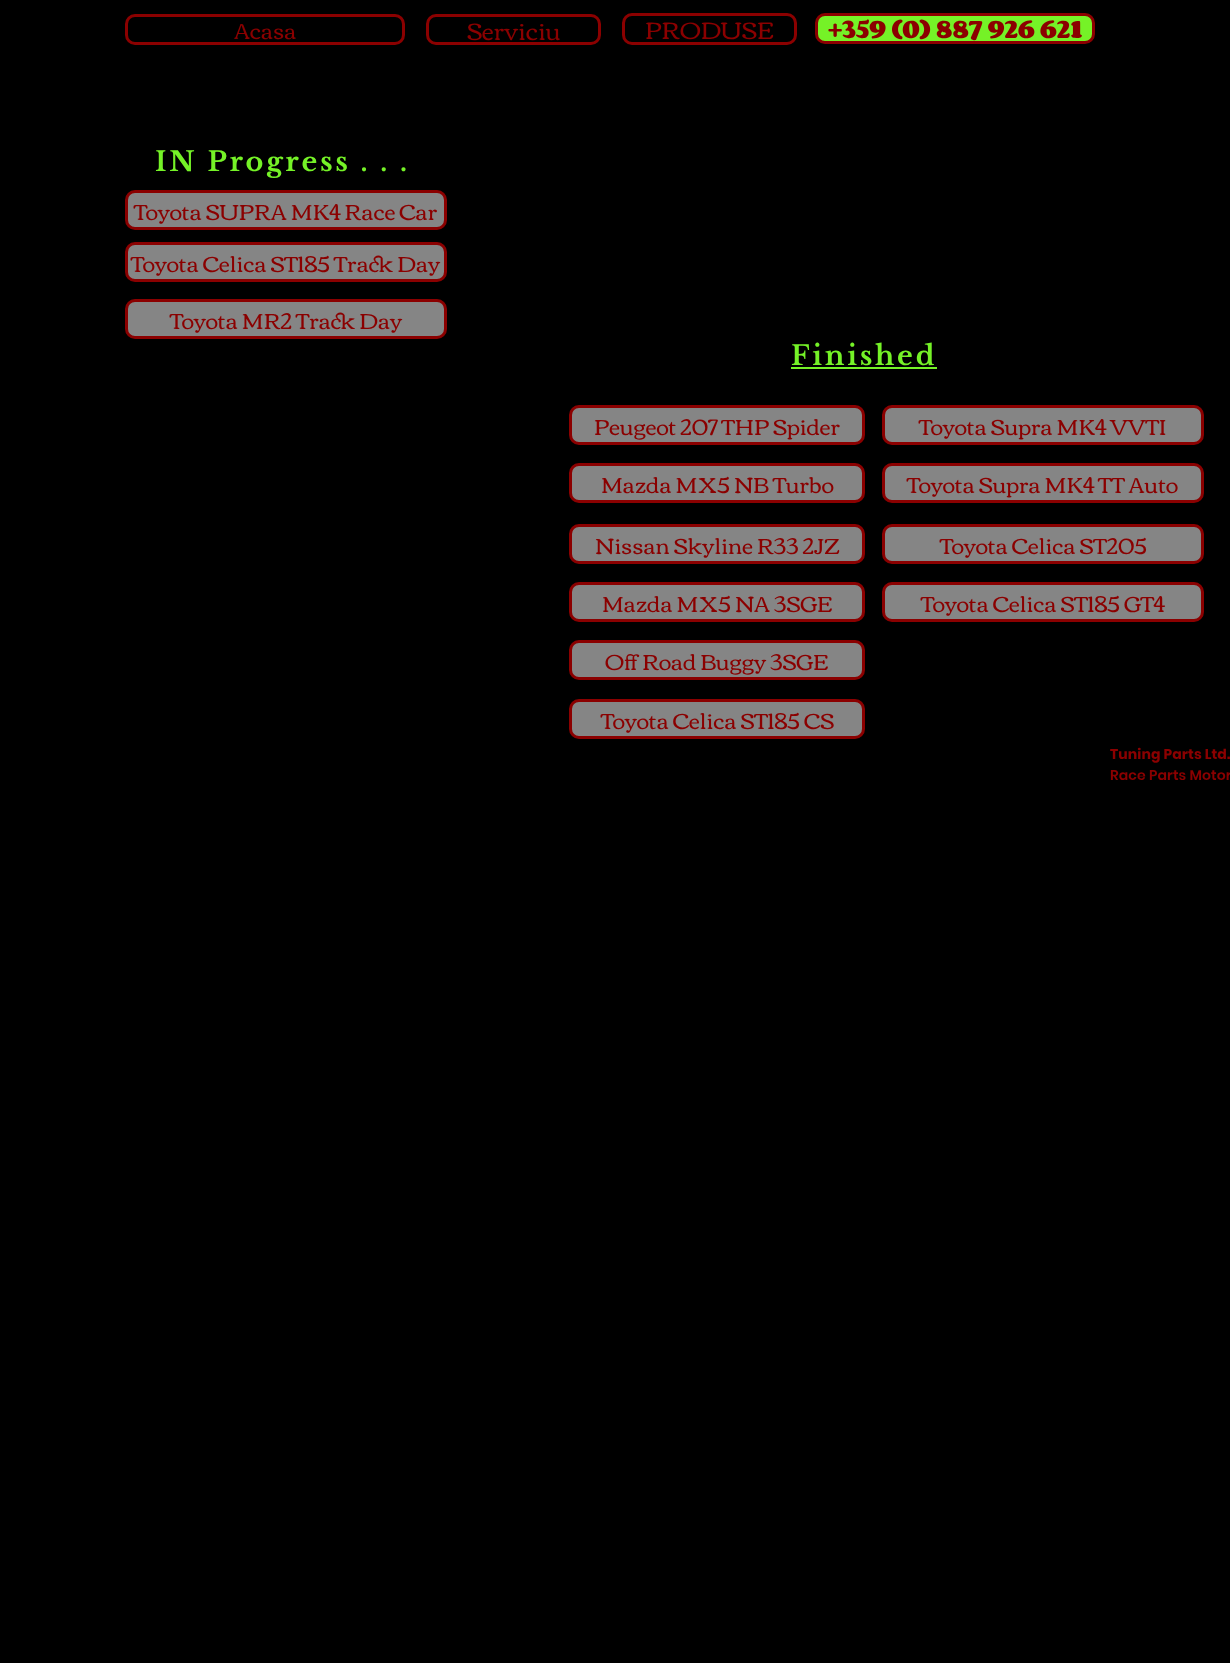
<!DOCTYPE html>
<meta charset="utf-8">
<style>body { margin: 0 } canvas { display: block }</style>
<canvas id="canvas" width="1230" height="1663"></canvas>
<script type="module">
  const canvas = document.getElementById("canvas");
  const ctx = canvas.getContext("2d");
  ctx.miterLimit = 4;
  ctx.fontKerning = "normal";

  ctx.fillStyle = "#000000";
  ctx.fillRect(0, 0, 1230, 1663);
  ctx.beginPath();
  ctx.roundRect(126.5, 15.5, 277, 28, 8.5);
  ctx.strokeStyle = "#8b0000";
  ctx.lineWidth = 3;
  ctx.stroke();
  ctx.font = "22px Corben";
  ctx.fillStyle = "#8b0000";
  ctx.fillText("Acasa", 234, 39);
  ctx.beginPath();
  ctx.roundRect(427.5, 15.5, 172, 28, 8.5);
  ctx.stroke();
  ctx.font = "24px Corben";
  ctx.fillText("Serviciu", 467, 40);
  ctx.beginPath();
  ctx.roundRect(623.5, 14.5, 172, 29, 8.5);
  ctx.stroke();
  ctx.fillText("PRODUSE", 645, 39);
  ctx.fillStyle = "#75f227";
  ctx.beginPath();
  ctx.roundRect(816.5, 14.5, 277, 28, 8.5);
  ctx.fill();
  ctx.stroke();
  ctx.font = "bold 22px Corben";
  ctx.fillStyle = "#8b0000";
  ctx.fillText("+359 (0) 887 926 621", 828, 38);
  ctx.letterSpacing = "2.75px";
  ctx.font = "bold 27px Libre Baskerville";
  ctx.fillStyle = "#75f227";
  ctx.fillText("IN Progress . . .", 155, 171);
  ctx.fillStyle = "#858585";
  ctx.beginPath();
  ctx.roundRect(126.5, 191.5, 319, 37, 8.5);
  ctx.fill();
  ctx.stroke();
  ctx.letterSpacing = "0px";
  ctx.font = "22px Corben";
  ctx.fillStyle = "#8b0000";
  ctx.fillText("Toyota SUPRA MK4 Race Car", 134, 220);
  ctx.fillStyle = "#858585";
  ctx.beginPath();
  ctx.roundRect(126.5, 243.5, 319, 37, 8.5);
  ctx.fill();
  ctx.stroke();
  ctx.fillStyle = "#8b0000";
  ctx.fillText("Toyota Celica ST185 Track Day", 131, 272);
  ctx.fillStyle = "#858585";
  ctx.beginPath();
  ctx.roundRect(126.5, 300.5, 319, 37, 8.5);
  ctx.fill();
  ctx.stroke();
  ctx.fillStyle = "#8b0000";
  ctx.fillText("Toyota MR2 Track Day", 170, 329);
  ctx.letterSpacing = "2.75px";
  ctx.font = "bold 27px Libre Baskerville";
  ctx.fillStyle = "#75f227";
  ctx.fillText("Finished", 791, 365);
  ctx.fillRect(791, 367, 146, 2);
  ctx.fillStyle = "#858585";
  ctx.beginPath();
  ctx.roundRect(570.5, 406.5, 293, 37, 8.5);
  ctx.fill();
  ctx.stroke();
  ctx.letterSpacing = "0px";
  ctx.font = "22px Corben";
  ctx.fillStyle = "#8b0000";
  ctx.fillText("Peugeot 207 THP Spider", 594, 435);
  ctx.fillStyle = "#858585";
  ctx.beginPath();
  ctx.roundRect(883.5, 406.5, 319, 37, 8.5);
  ctx.fill();
  ctx.stroke();
  ctx.fillStyle = "#8b0000";
  ctx.fillText("Toyota Supra MK4 VVTI", 919, 435);
  ctx.fillStyle = "#858585";
  ctx.beginPath();
  ctx.roundRect(570.5, 464.5, 293, 37, 8.5);
  ctx.fill();
  ctx.stroke();
  ctx.fillStyle = "#8b0000";
  ctx.fillText("Mazda MX5 NB Turbo", 601, 493);
  ctx.fillStyle = "#858585";
  ctx.beginPath();
  ctx.roundRect(883.5, 464.5, 319, 37, 8.5);
  ctx.fill();
  ctx.stroke();
  ctx.fillStyle = "#8b0000";
  ctx.fillText("Toyota Supra MK4 TT Auto", 907, 493);
  ctx.fillStyle = "#858585";
  ctx.beginPath();
  ctx.roundRect(570.5, 525.5, 293, 37, 8.5);
  ctx.fill();
  ctx.stroke();
  ctx.fillStyle = "#8b0000";
  ctx.fillText("Nissan Skyline R33 2JZ", 595, 554);
  ctx.fillStyle = "#858585";
  ctx.beginPath();
  ctx.roundRect(883.5, 525.5, 319, 37, 8.5);
  ctx.fill();
  ctx.stroke();
  ctx.fillStyle = "#8b0000";
  ctx.fillText("Toyota Celica ST205", 940, 554);
  ctx.fillStyle = "#858585";
  ctx.beginPath();
  ctx.roundRect(570.5, 583.5, 293, 37, 8.5);
  ctx.fill();
  ctx.stroke();
  ctx.fillStyle = "#8b0000";
  ctx.fillText("Mazda MX5 NA 3SGE", 602, 612);
  ctx.fillStyle = "#858585";
  ctx.beginPath();
  ctx.roundRect(883.5, 583.5, 319, 37, 8.5);
  ctx.fill();
  ctx.stroke();
  ctx.fillStyle = "#8b0000";
  ctx.fillText("Toyota Celica ST185 GT4", 921, 612);
  ctx.fillStyle = "#858585";
  ctx.beginPath();
  ctx.roundRect(570.5, 641.5, 293, 37, 8.5);
  ctx.fill();
  ctx.stroke();
  ctx.fillStyle = "#8b0000";
  ctx.fillText("Off Road Buggy 3SGE", 605, 670);
  ctx.fillStyle = "#858585";
  ctx.beginPath();
  ctx.roundRect(570.5, 700.5, 293, 37, 8.5);
  ctx.fill();
  ctx.stroke();
  ctx.fillStyle = "#8b0000";
  ctx.fillText("Toyota Celica ST185 CS", 601, 729);
  ctx.letterSpacing = "0.1px";
  ctx.font = "bold 14px Poppins";
  ctx.fillText("Tuning Parts Ltd.", 1110, 759);
  ctx.font = "600 14px Poppins";
  ctx.fillText("Race Parts Motor", 1110, 780);
</script>
